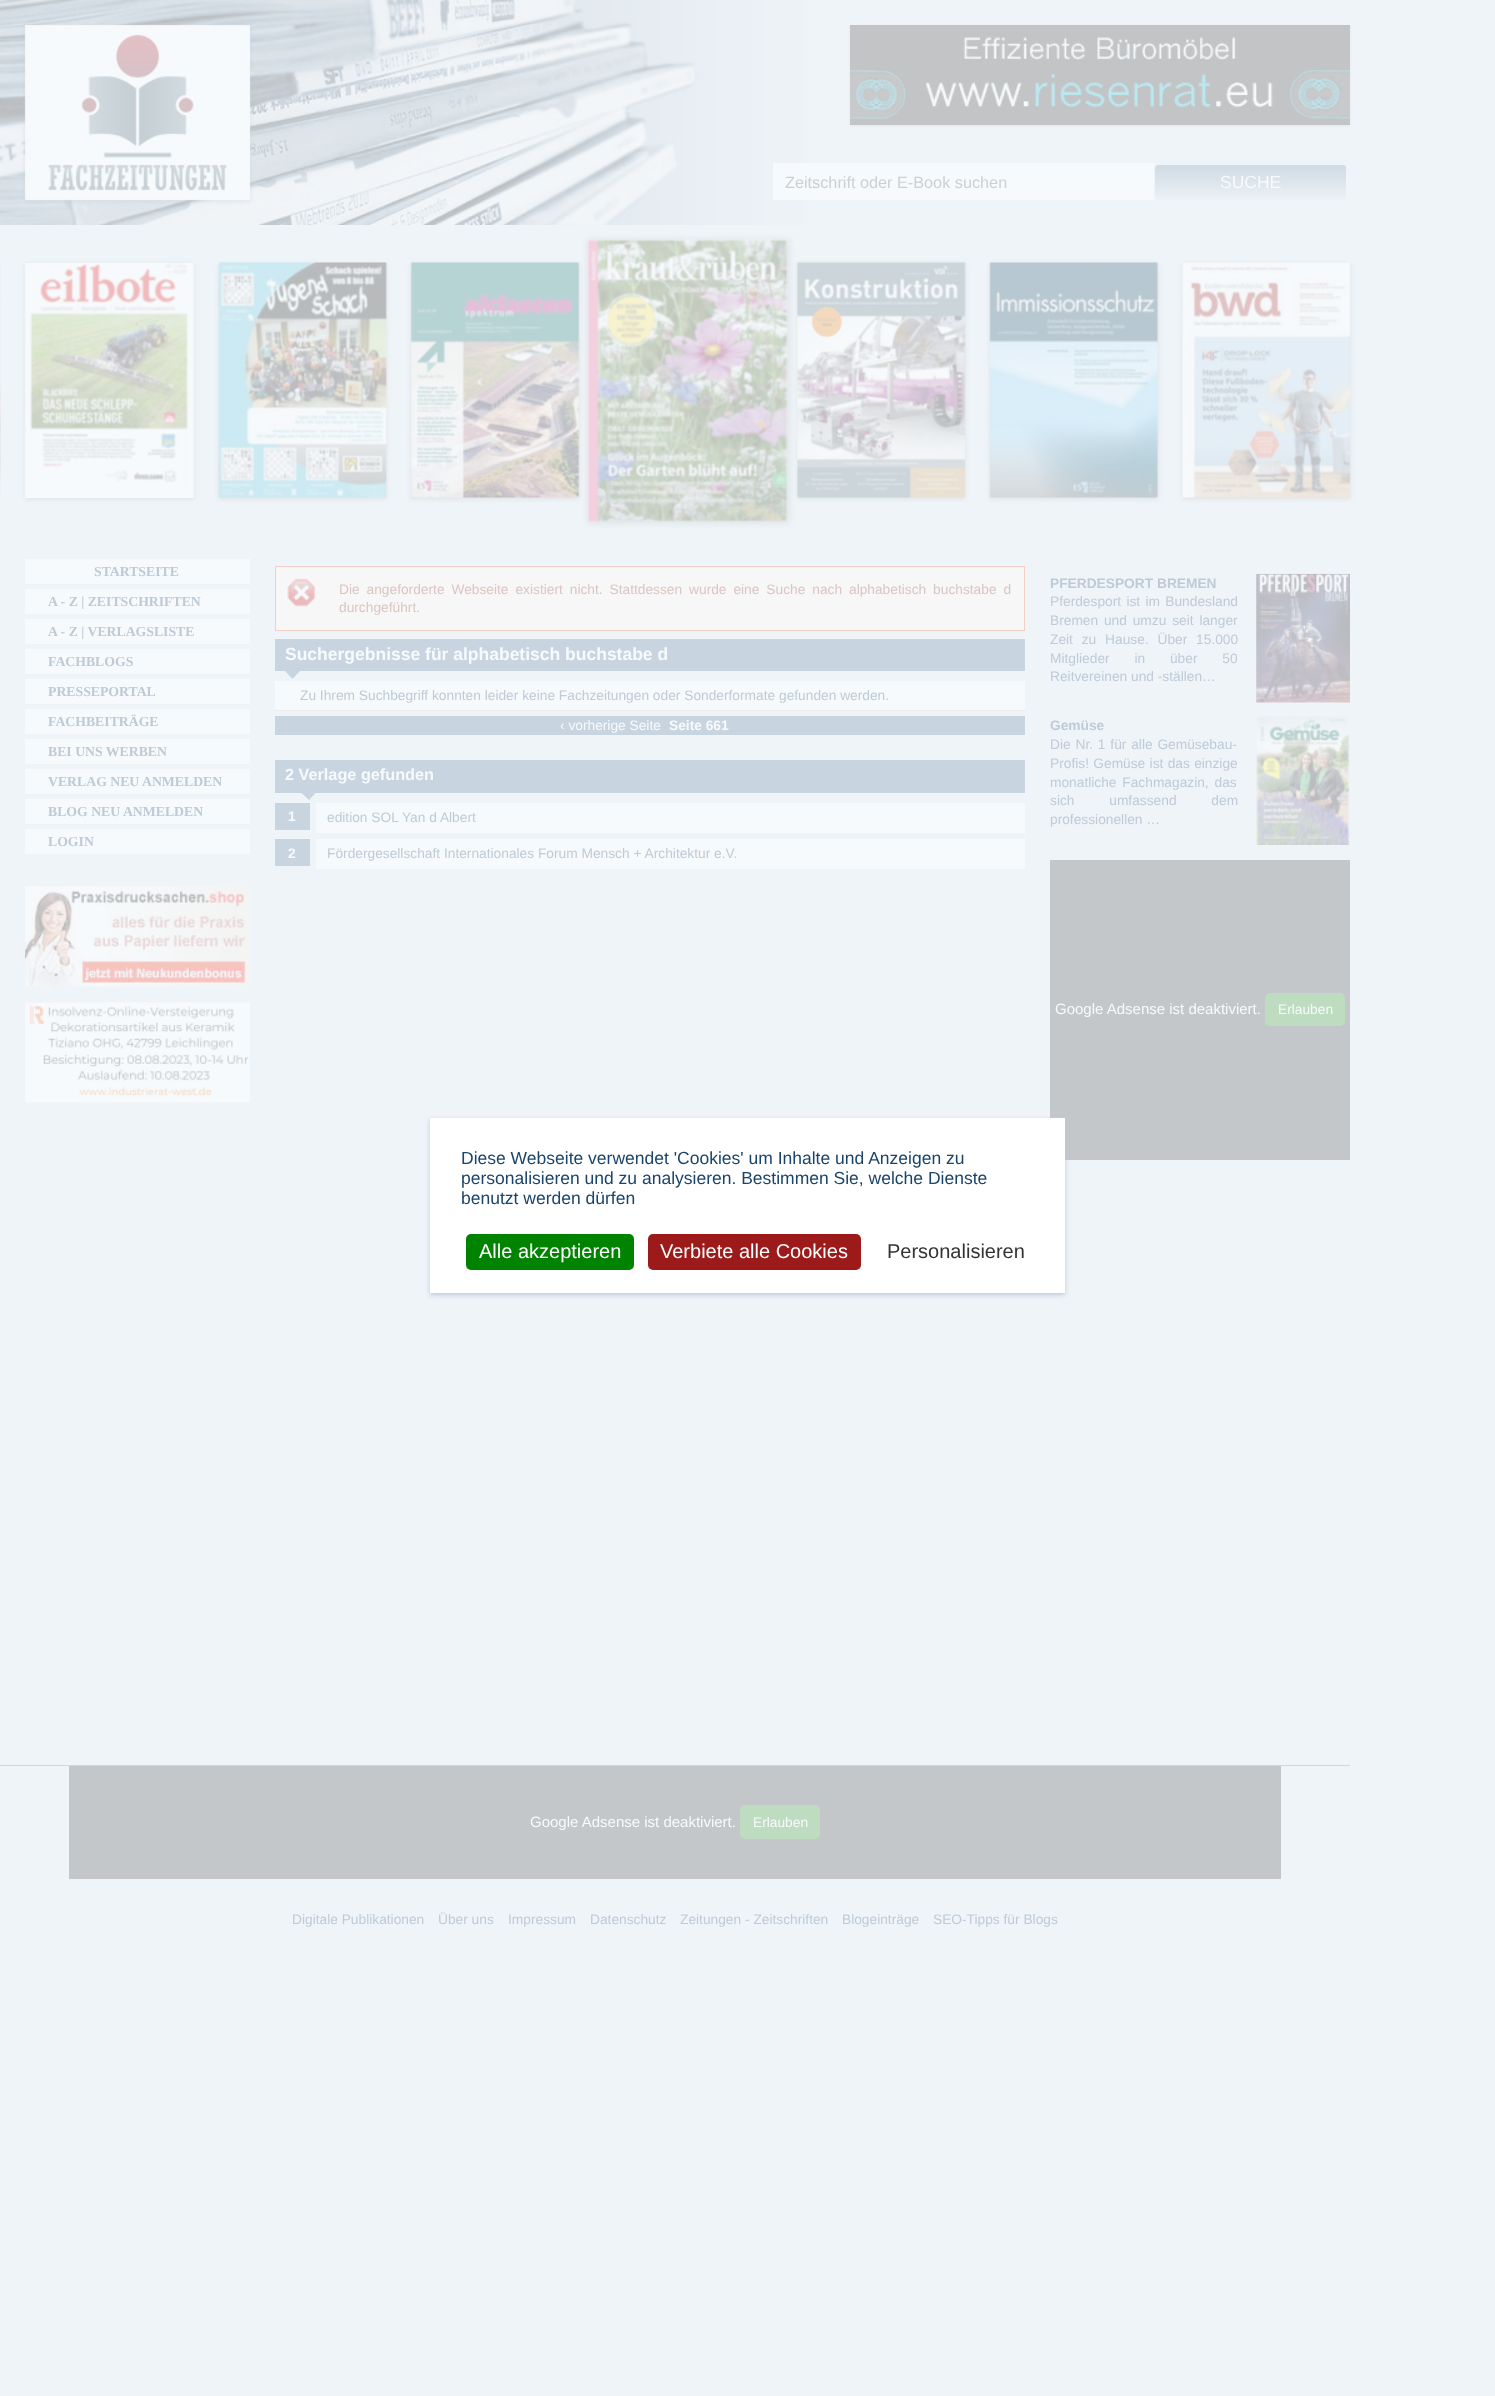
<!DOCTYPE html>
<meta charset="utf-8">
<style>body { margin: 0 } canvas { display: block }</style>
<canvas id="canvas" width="1495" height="2396"></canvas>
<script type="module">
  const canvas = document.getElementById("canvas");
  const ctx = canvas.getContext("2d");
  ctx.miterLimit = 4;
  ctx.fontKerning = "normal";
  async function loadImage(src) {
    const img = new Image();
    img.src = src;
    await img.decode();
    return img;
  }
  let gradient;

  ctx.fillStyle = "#eff4f8";
  ctx.fillRect(0, 0, 1495, 2396);
  ctx.drawImage(await loadImage("img1.png"), 0, 0, 807, 225);
  ctx.drawImage(await loadImage("img2.png"), 48, 34, 179, 157);
  ctx.fillStyle = "#e6e9eb";
  ctx.filter = "blur(1px)";
  ctx.beginPath();
  ctx.rect(850, 26, 500, 100);
  ctx.fill();
  ctx.filter = "none";
  ctx.drawImage(await loadImage("img3.png"), 850, 25, 500, 100);
  ctx.fillStyle = "#f7fafc";
  ctx.fillRect(773, 163, 381, 37);
  ctx.font = "16.25px Liberation Sans";
  ctx.fillStyle = "#cdcfd1";
  ctx.fillText("Zeitschrift oder E-Book suchen", 785, 188);
  gradient = ctx.createLinearGradient(1251, 165, 1251, 200);
  gradient.addColorStop(0, "#cfdae3");
  gradient.addColorStop(1, "#ecf2f6");
  ctx.fillStyle = gradient;
  ctx.beginPath();
  ctx.roundRect(1155, 165, 191, 35, 2.5);
  ctx.fill();
  ctx.beginPath();
  ctx.roundRect(1154.5, 164.5, 193, 36, 3.5);
  ctx.strokeStyle = "#eff4f8";
  ctx.stroke();
  ctx.font = "17.5px Liberation Sans";
  ctx.fillStyle = "#f7fafc";
  ctx.fillText("SUCHE", 1220, 188);
  ctx.fillStyle = "#c4c7c9";
  ctx.fillRect(69, 1766, 1212, 113);
  ctx.font = "15px Liberation Sans";
  ctx.fillStyle = "#f7fafc";
  ctx.fillText("Google Adsense ist deaktiviert.", 530, 1827);
  ctx.fillStyle = "#bedcbf";
  ctx.beginPath();
  ctx.roundRect(740, 1805, 80, 34, 5);
  ctx.fill();
  ctx.font = "13.75px Liberation Sans";
  ctx.fillStyle = "#f7fafc";
  ctx.fillText("Erlauben", 753, 1827);
  ctx.fillStyle = "#cbd8e3";
  ctx.fillRect(0, 1765, 1350, 1);
  ctx.fillStyle = "#becbd7";
  ctx.fillText("Digitale Publikationen", 292, 1924);
  ctx.fillText("Über uns", 438, 1924);
  ctx.fillText("Impressum", 508, 1924);
  ctx.fillText("Datenschutz", 590, 1924);
  ctx.fillText("Zeitungen - Zeitschriften", 680, 1924);
  ctx.fillText("Blogeinträge", 842, 1924);
  ctx.fillText("SEO-Tipps für Blogs", 933, 1924);
  ctx.drawImage(await loadImage("img4.png"), 0, 263, 1, 235);
  ctx.fillStyle = "rgba(184, 186, 188, 0.3)";
  ctx.filter = "blur(2.5px)";
  ctx.beginPath();
  ctx.rect(25, 264, 169, 235);
  ctx.fill();
  ctx.filter = "none";
  ctx.drawImage(await loadImage("img5.png"), 24, 263, 171, 235);
  ctx.filter = "blur(2.5px)";
  ctx.beginPath();
  ctx.rect(219, 264, 167, 235);
  ctx.fill();
  ctx.filter = "none";
  ctx.drawImage(await loadImage("img6.png"), 218, 262, 169, 236);
  ctx.filter = "blur(2.5px)";
  ctx.beginPath();
  ctx.rect(411, 264, 168, 235);
  ctx.fill();
  ctx.filter = "none";
  ctx.drawImage(await loadImage("img7.png"), 410, 262, 170, 236);
  ctx.filter = "blur(3px)";
  ctx.beginPath();
  ctx.rect(588, 240, 201, 283);
  ctx.fill();
  ctx.filter = "none";
  ctx.drawImage(await loadImage("img8.png"), 586, 238, 203, 284);
  ctx.filter = "blur(2.5px)";
  ctx.beginPath();
  ctx.rect(798, 264, 167, 235);
  ctx.fill();
  ctx.filter = "none";
  ctx.drawImage(await loadImage("img9.png"), 797, 261, 169, 237);
  ctx.filter = "blur(2.5px)";
  ctx.beginPath();
  ctx.rect(990, 264, 168, 235);
  ctx.fill();
  ctx.filter = "none";
  ctx.drawImage(await loadImage("img10.png"), 989, 262, 169, 236);
  ctx.filter = "blur(2.5px)";
  ctx.beginPath();
  ctx.rect(1183, 264, 167, 235);
  ctx.fill();
  ctx.filter = "none";
  ctx.drawImage(await loadImage("img11.png"), 1182, 262, 169, 236);
  ctx.fillStyle = "#f7fafc";
  ctx.fillRect(25, 559, 225, 25);
  ctx.font = "bold 13.75px Liberation Serif";
  ctx.fillStyle = "#becbd7";
  ctx.fillText("STARTSEITE", 94, 576);
  ctx.fillStyle = "#f7fafc";
  ctx.fillRect(25, 589, 225, 25);
  ctx.fillStyle = "#becbd7";
  ctx.fillText("A - Z | ZEITSCHRIFTEN", 48, 606);
  ctx.fillStyle = "#f7fafc";
  ctx.fillRect(25, 619, 225, 25);
  ctx.fillStyle = "#becbd7";
  ctx.fillText("A - Z | VERLAGSLISTE", 48, 636);
  ctx.fillStyle = "#f7fafc";
  ctx.fillRect(25, 649, 225, 25);
  ctx.fillStyle = "#becbd7";
  ctx.fillText("FACHBLOGS", 48, 666);
  ctx.fillStyle = "#f7fafc";
  ctx.fillRect(25, 679, 225, 25);
  ctx.fillStyle = "#becbd7";
  ctx.fillText("PRESSEPORTAL", 48, 696);
  ctx.fillStyle = "#f7fafc";
  ctx.fillRect(25, 709, 225, 25);
  ctx.fillStyle = "#becbd7";
  ctx.fillText("FACHBEITRÄGE", 48, 726);
  ctx.fillStyle = "#f7fafc";
  ctx.fillRect(25, 739, 225, 25);
  ctx.fillStyle = "#becbd7";
  ctx.fillText("BEI UNS WERBEN", 48, 756);
  ctx.fillStyle = "#f7fafc";
  ctx.fillRect(25, 769, 225, 25);
  ctx.fillStyle = "#becbd7";
  ctx.fillText("VERLAG NEU ANMELDEN", 48, 786);
  ctx.fillStyle = "#f7fafc";
  ctx.fillRect(25, 799, 225, 25);
  ctx.fillStyle = "#becbd7";
  ctx.fillText("BLOG NEU ANMELDEN", 48, 816);
  ctx.fillStyle = "#f7fafc";
  ctx.fillRect(25, 829, 225, 25);
  ctx.fillStyle = "#becbd7";
  ctx.fillText("LOGIN", 48, 846);
  ctx.drawImage(await loadImage("img12.png"), 25, 886, 225, 101);
  ctx.drawImage(await loadImage("img13.png"), 25, 1002, 225, 101);
  ctx.fillStyle = "#f7f7f8";
  ctx.fillRect(276, 567, 748, 63);
  ctx.drawImage(await loadImage("img14.png"), 286, 577, 30, 31);
  ctx.strokeStyle = "#f3cfc3";
  ctx.strokeRect(275.5, 566.5, 749, 64);
  ctx.wordSpacing = "3.1px";
  ctx.font = "13.75px Liberation Sans";
  ctx.fillStyle = "#dbc6bf";
  ctx.fillText("Die angeforderte Webseite existiert nicht. Stattdessen wurde eine Suche nach alphabetisch buchstabe d", 339, 594);
  ctx.wordSpacing = "0px";
  ctx.fillText("durchgeführt.", 339, 612);
  ctx.fillStyle = "#c8d5e1";
  ctx.fillRect(275, 639, 750, 32);
  ctx.font = "bold 17.5px Liberation Sans";
  ctx.fillStyle = "#f7fafc";
  ctx.fillText("Suchergebnisse für alphabetisch buchstabe d", 285, 660);
  ctx.fillStyle = "#c8d5e1";
  ctx.beginPath();
  ctx.moveTo(285, 671);
  ctx.lineTo(300, 671);
  ctx.lineTo(292.5, 679);
  ctx.closePath();
  ctx.fill();
  ctx.fillStyle = "#f7fafc";
  ctx.fillRect(275, 681, 750, 29);
  ctx.fillStyle = "#ebedef";
  ctx.fillRect(275, 710, 750, 1);
  ctx.font = "13.75px Liberation Sans";
  ctx.fillStyle = "#becbd7";
  ctx.fillText("Zu Ihrem Suchbegriff konnten leider keine Fachzeitungen oder Sonderformate gefunden werden.", 300, 700);
  ctx.fillStyle = "#c8d5e1";
  ctx.fillRect(275, 716, 750, 19);
  ctx.fillStyle = "#f7fafc";
  ctx.fillText("‹ vorherige Seite", 560, 730);
  ctx.font = "bold 13.75px Liberation Sans";
  ctx.fillText("Seite 661", 669, 730);
  ctx.fillStyle = "#c8d5e1";
  ctx.fillRect(275, 760, 750, 33);
  ctx.font = "bold 16.25px Liberation Sans";
  ctx.fillStyle = "#f7fafc";
  ctx.fillText("2 Verlage gefunden", 285, 780);
  ctx.fillStyle = "#c8d5e1";
  ctx.beginPath();
  ctx.moveTo(301, 792.5);
  ctx.lineTo(316, 792.5);
  ctx.lineTo(309, 800);
  ctx.closePath();
  ctx.fill();
  ctx.fillRect(275, 803, 35, 27);
  ctx.font = "bold 13.75px Liberation Sans";
  ctx.fillStyle = "#f7fafc";
  ctx.fillText("1", 288, 821);
  ctx.fillRect(316, 803, 709, 30);
  ctx.font = "13.75px Liberation Sans";
  ctx.fillStyle = "#becbd7";
  ctx.fillText("edition SOL Yan d Albert", 327, 822);
  ctx.fillStyle = "#c8d5e1";
  ctx.fillRect(275, 839, 35, 27);
  ctx.font = "bold 13.75px Liberation Sans";
  ctx.fillStyle = "#f7fafc";
  ctx.fillText("2", 288, 858);
  ctx.fillRect(316, 839, 709, 30);
  ctx.font = "13.75px Liberation Sans";
  ctx.fillStyle = "#becbd7";
  ctx.fillText("Fördergesellschaft Internationales Forum Mensch + Architektur e.V.", 327, 858);
  ctx.font = "bold 13.75px Liberation Sans";
  ctx.fillText("PFERDESPORT BREMEN", 1050, 588);
  ctx.drawImage(await loadImage("img15.png"), 1256, 573, 94, 130);
  ctx.wordSpacing = "1.5px";
  ctx.font = "13.75px Liberation Sans";
  ctx.fillText("Pferdesport ist im Bundesland", 1050, 606);
  ctx.wordSpacing = "2px";
  ctx.fillText("Bremen und umzu seit langer", 1050, 625);
  ctx.wordSpacing = "5px";
  ctx.fillText("Zeit zu Hause. Über 15.000", 1050, 644);
  ctx.wordSpacing = "21px";
  ctx.fillText("Mitglieder in über 50", 1050, 663);
  ctx.wordSpacing = "0px";
  ctx.fillText("Reitvereinen und -ställen…", 1050, 681);
  ctx.font = "bold 13.75px Liberation Sans";
  ctx.fillText("Gemüse", 1050, 730);
  ctx.drawImage(await loadImage("img16.png"), 1256, 716, 94, 129);
  ctx.wordSpacing = "1px";
  ctx.font = "13.75px Liberation Sans";
  ctx.fillText("Die Nr. 1 für alle Gemüsebau-", 1050, 749);
  ctx.wordSpacing = "0.5px";
  ctx.fillText("Profis! Gemüse ist das einzige", 1050, 768);
  ctx.wordSpacing = "2px";
  ctx.fillText("monatliche Fachmagazin, das", 1050, 787);
  ctx.wordSpacing = "31px";
  ctx.fillText("sich umfassend dem", 1050, 805);
  ctx.wordSpacing = "0px";
  ctx.fillText("professionellen …", 1050, 824);
  ctx.fillStyle = "#c4c7c9";
  ctx.fillRect(1050, 860, 300, 300);
  ctx.font = "15px Liberation Sans";
  ctx.fillStyle = "#f7fafc";
  ctx.fillText("Google Adsense ist deaktiviert.", 1055, 1014);
  ctx.fillStyle = "#bedcbf";
  ctx.beginPath();
  ctx.roundRect(1265, 993, 80, 33, 5);
  ctx.fill();
  ctx.font = "13.75px Liberation Sans";
  ctx.fillStyle = "#f7fafc";
  ctx.fillText("Erlauben", 1278, 1014);
  ctx.fillStyle = "#bbcadd";
  ctx.filter = "blur(2.5px)";
  ctx.beginPath();
  ctx.rect(430, 1120, 635, 175);
  ctx.fill();
  ctx.filter = "none";
  ctx.fillStyle = "#ffffff";
  ctx.fillRect(430, 1118, 635, 175);
  ctx.font = "17.5px Liberation Sans";
  ctx.fillStyle = "#1b446a";
  ctx.fillText("Diese Webseite verwendet 'Cookies' um Inhalte und Anzeigen zu", 461, 1164);
  ctx.fillText("personalisieren und zu analysieren. Bestimmen Sie, welche Dienste", 461, 1184);
  ctx.fillText("benutzt werden dürfen", 461, 1204);
  ctx.fillStyle = "#008300";
  ctx.beginPath();
  ctx.roundRect(466, 1234, 168, 36, 5);
  ctx.fill();
  ctx.font = "20px Liberation Sans";
  ctx.fillStyle = "#ffffff";
  ctx.fillText("Alle akzeptieren", 479, 1258);
  ctx.fillStyle = "#9c1a1a";
  ctx.beginPath();
  ctx.roundRect(648, 1234, 213, 36, 5);
  ctx.fill();
  ctx.fillStyle = "#ffffff";
  ctx.fillText("Verbiete alle Cookies", 660, 1258);
  ctx.fillStyle = "#333333";
  ctx.fillText("Personalisieren", 887, 1258);
</script>
